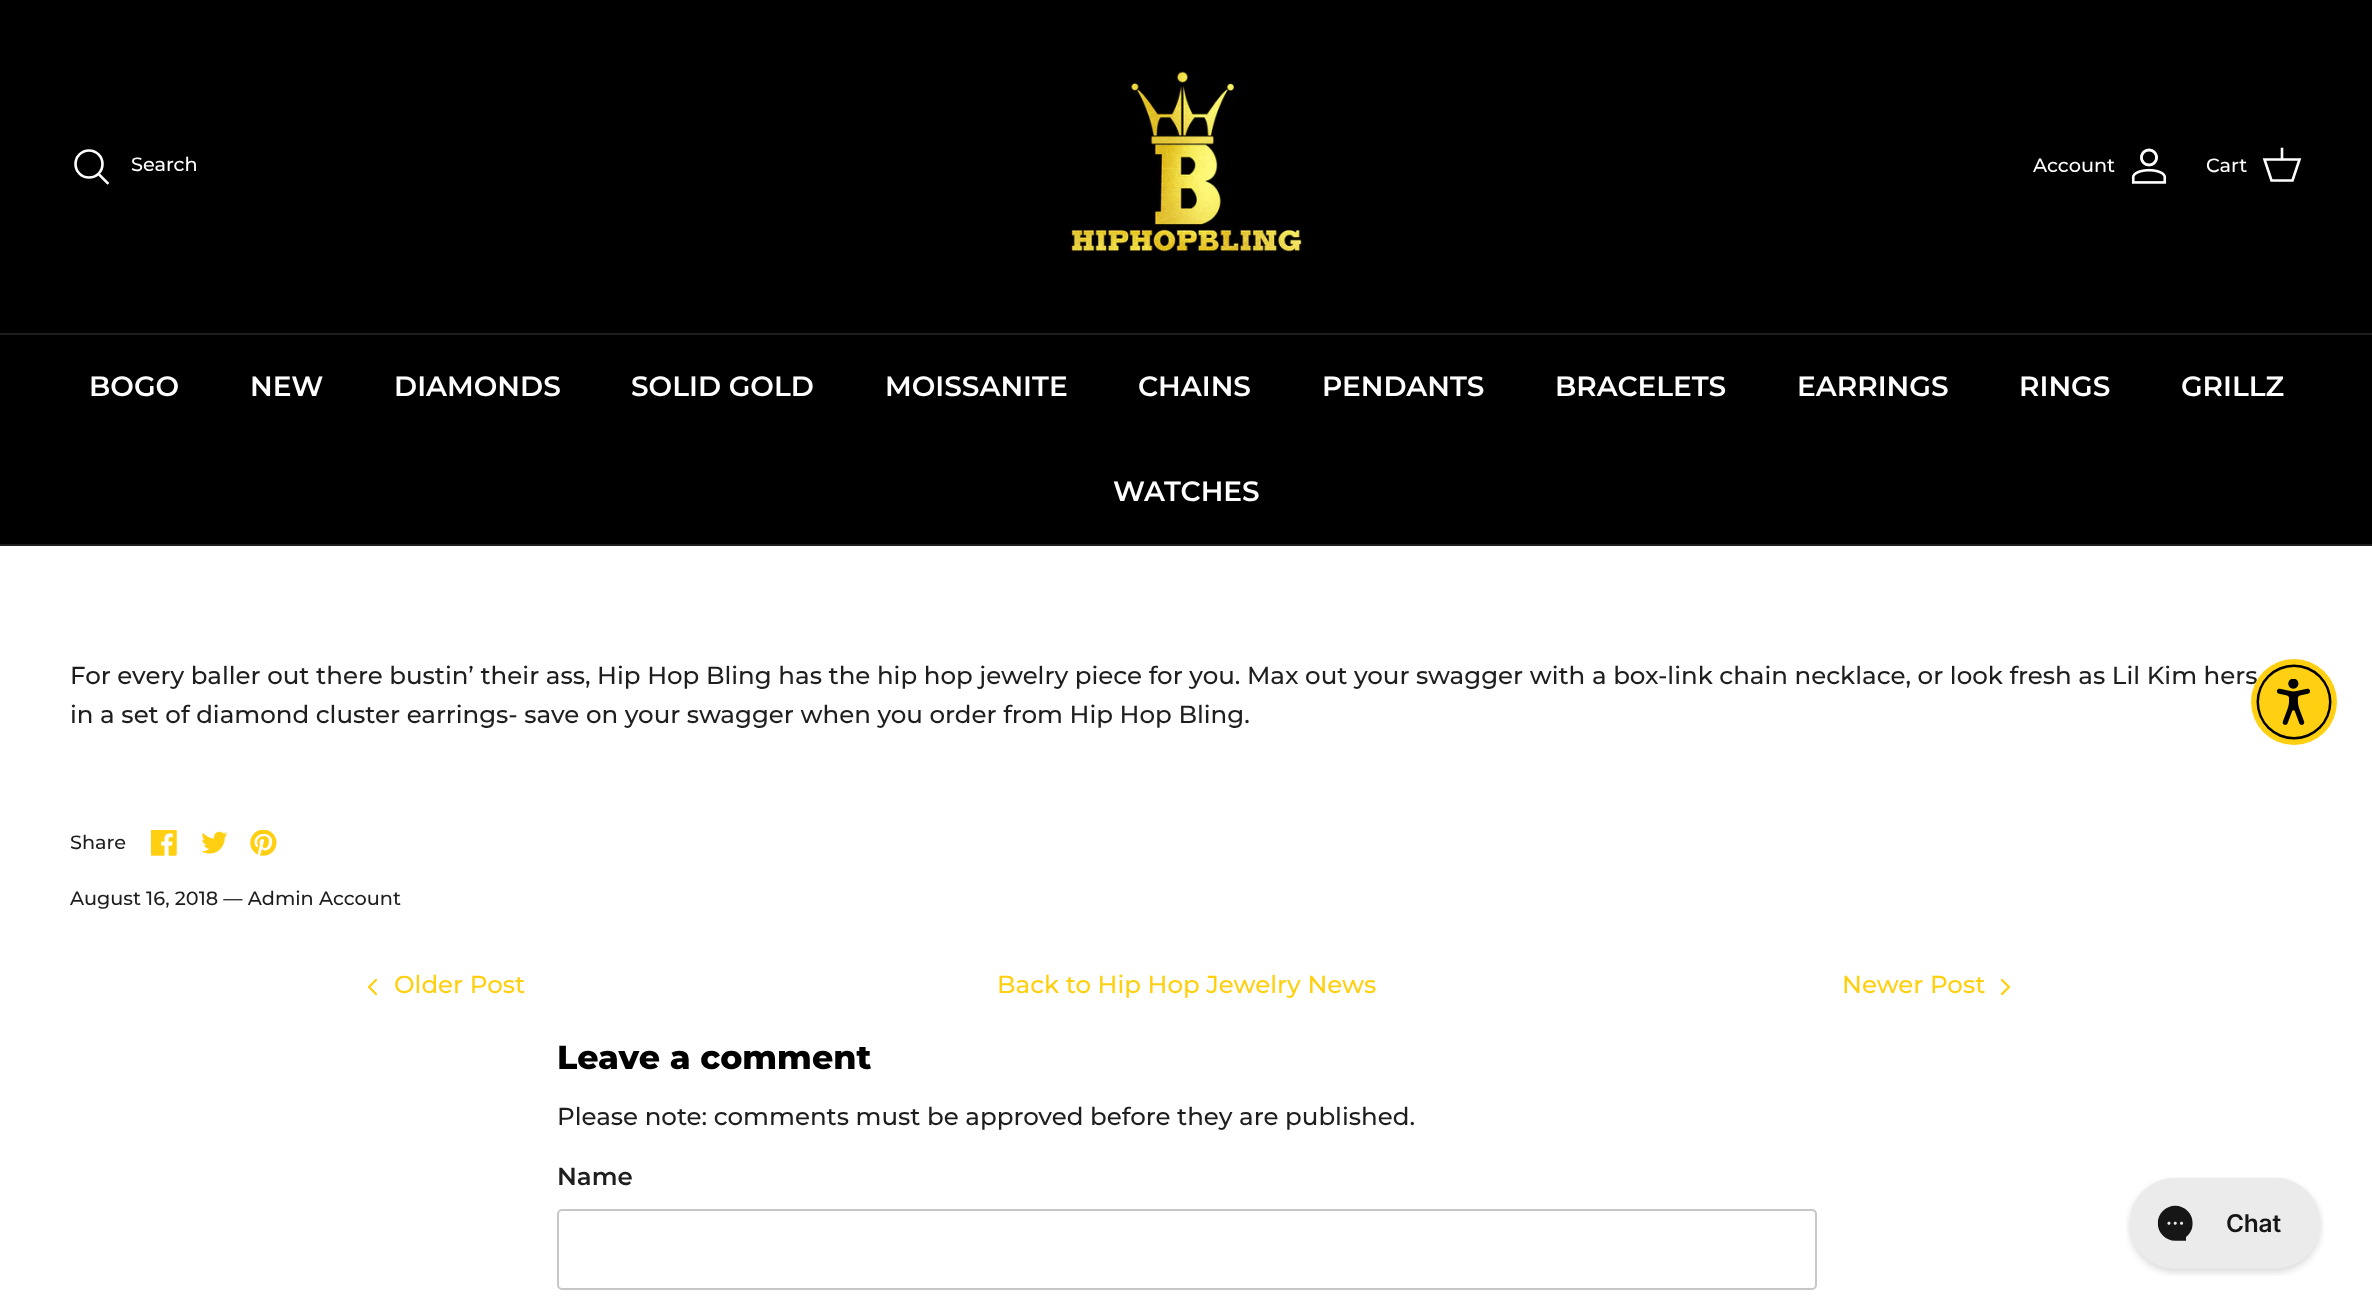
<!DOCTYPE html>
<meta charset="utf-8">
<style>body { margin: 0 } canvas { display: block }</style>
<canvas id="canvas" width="2372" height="1316"></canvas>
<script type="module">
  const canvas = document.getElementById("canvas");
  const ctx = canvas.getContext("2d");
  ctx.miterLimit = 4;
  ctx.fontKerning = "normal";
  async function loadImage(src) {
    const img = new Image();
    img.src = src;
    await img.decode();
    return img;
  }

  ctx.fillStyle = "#ffffff";
  ctx.fillRect(0, 0, 2372, 1316);
  ctx.fillStyle = "#000000";
  ctx.fillRect(0, 0, 2372, 333);
  ctx.fillStyle = "#1e1e1e";
  ctx.fillRect(0, 333, 2372, 2);
  ctx.beginPath();
  ctx.arc(89, 164, 13.5, 0, Math.PI * 2);
  ctx.strokeStyle = "#ffffff";
  ctx.lineWidth = 2.6;
  ctx.stroke();
  ctx.font = "500 19.25px Montserrat";
  ctx.fillStyle = "#ffffff";
  ctx.fillText("Search", 131, 171);
  ctx.beginPath();
  ctx.moveTo(99.5, 175);
  ctx.lineTo(107.5, 183);
  ctx.lineCap = "square";
  ctx.stroke();
  ctx.drawImage(await loadImage("img1.png"), 1069, 71, 234, 181);
  ctx.fillText("Account", 2033, 172);
  ctx.drawImage(await loadImage("img2.png"), 2131, 148, 36, 36);
  ctx.fillText("Cart", 2206, 172);
  ctx.beginPath();
  ctx.moveTo(2264.5, 159.5);
  ctx.lineTo(2299.5, 159.5);
  ctx.lineTo(2292.5, 180.5);
  ctx.lineTo(2271.5, 180.5);
  ctx.closePath();
  ctx.lineCap = "butt";
  ctx.stroke();
  ctx.beginPath();
  ctx.moveTo(2282, 159);
  ctx.lineTo(2282, 149);
  ctx.lineCap = "square";
  ctx.stroke();
  ctx.fillStyle = "#1e1e1e";
  ctx.fillRect(0, 544, 2372, 2);
  ctx.fillStyle = "#000000";
  ctx.fillRect(0, 335, 2372, 209);
  ctx.font = "600 28px Montserrat";
  ctx.fillStyle = "#ffffff";
  ctx.fillText("BOGO", 89, 396);
  ctx.fillText("NEW", 250, 396);
  ctx.fillText("DIAMONDS", 394, 396);
  ctx.fillText("SOLID GOLD", 631, 396);
  ctx.fillText("MOISSANITE", 885, 396);
  ctx.fillText("CHAINS", 1138, 396);
  ctx.fillText("PENDANTS", 1322, 396);
  ctx.fillText("BRACELETS", 1555, 396);
  ctx.fillText("EARRINGS", 1797, 396);
  ctx.fillText("RINGS", 2019, 396);
  ctx.fillText("GRILLZ", 2181, 396);
  ctx.fillText("WATCHES", 1113, 501);
  ctx.font = "500 24.5px Montserrat";
  ctx.fillStyle = "#1e1e1e";
  ctx.fillText("For every baller out there bustin’ their ass, Hip Hop Bling has the hip hop jewelry piece for you. Max out your swagger with a box-link chain necklace, or look fresh as Lil Kim hers", 70, 684);
  ctx.fillText("in a set of diamond cluster earrings- save on your swagger when you order from Hip Hop Bling.", 70, 723);
  ctx.font = "500 19.25px Montserrat";
  ctx.fillText("Share", 70, 849);
  ctx.drawImage(await loadImage("img3.png"), 151, 830, 26, 26);
  ctx.drawImage(await loadImage("img4.png"), 201, 831, 27, 23);
  ctx.drawImage(await loadImage("img5.png"), 250, 830, 27, 26);
  ctx.fillText("August 16, 2018 — Admin Account", 70, 905);
  ctx.font = "500 24.5px Montserrat";
  ctx.fillStyle = "#ffd012";
  ctx.fillText("Older Post", 394, 993);
  ctx.beginPath();
  ctx.moveTo(376, 994);
  ctx.lineTo(369, 987);
  ctx.lineTo(376, 980);
  ctx.strokeStyle = "#ffd012";
  ctx.lineWidth = 2.3;
  ctx.lineCap = "round";
  ctx.lineJoin = "round";
  ctx.stroke();
  ctx.fillText("Back to Hip Hop Jewelry News", 997, 993);
  ctx.fillText("Newer Post", 1842, 993);
  ctx.beginPath();
  ctx.moveTo(2002, 994);
  ctx.lineTo(2009, 987);
  ctx.lineTo(2002, 980);
  ctx.stroke();
  ctx.font = "800 33.25px Montserrat";
  ctx.fillStyle = "#000000";
  ctx.fillText("Leave a comment", 557, 1069);
  ctx.font = "500 24.5px Montserrat";
  ctx.fillStyle = "#1e1e1e";
  ctx.fillText("Please note: comments must be approved before they are published.", 557, 1125);
  ctx.font = "600 24.5px Montserrat";
  ctx.fillText("Name", 557, 1185);
  ctx.beginPath();
  ctx.roundRect(558, 1210, 1258, 79, 4);
  ctx.strokeStyle = "#c7c7c7";
  ctx.lineWidth = 2;
  ctx.lineJoin = "miter";
  ctx.stroke();
  ctx.fillStyle = "#ffd012";
  ctx.beginPath();
  ctx.arc(2294, 702, 43, 0, Math.PI * 2);
  ctx.fill();
  ctx.fillStyle = "#000000";
  ctx.beginPath();
  ctx.arc(2294, 702, 37.5, 0, Math.PI * 2);
  ctx.fill();
  ctx.fillStyle = "#ffd012";
  ctx.beginPath();
  ctx.arc(2294, 702, 35, 0, Math.PI * 2);
  ctx.fill();
  ctx.drawImage(await loadImage("img6.png"), 2276, 679, 34, 46);
  ctx.drawImage(await loadImage("img7.png"), 2126, 1177, 198, 99);
</script>
